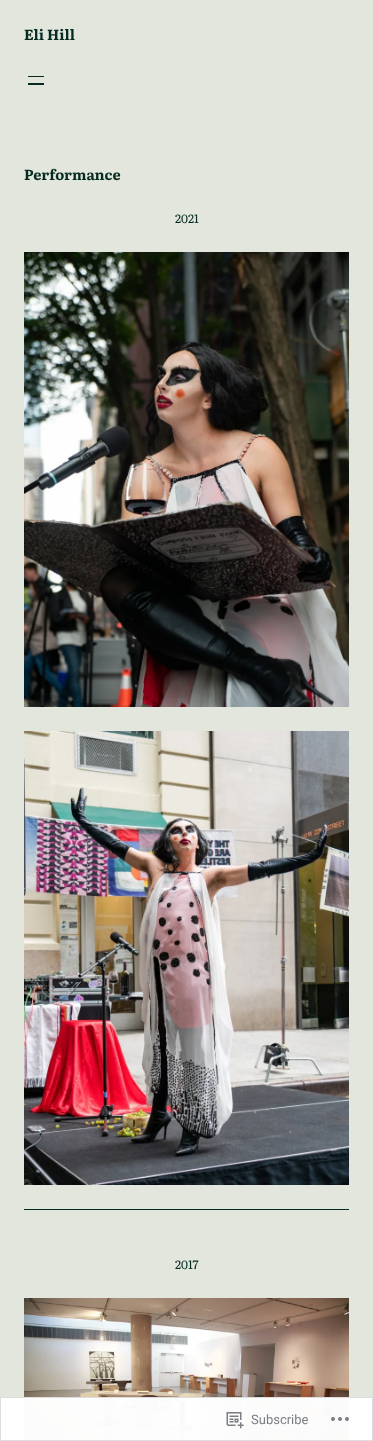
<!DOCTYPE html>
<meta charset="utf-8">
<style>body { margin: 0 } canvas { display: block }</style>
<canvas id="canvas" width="373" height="1441"></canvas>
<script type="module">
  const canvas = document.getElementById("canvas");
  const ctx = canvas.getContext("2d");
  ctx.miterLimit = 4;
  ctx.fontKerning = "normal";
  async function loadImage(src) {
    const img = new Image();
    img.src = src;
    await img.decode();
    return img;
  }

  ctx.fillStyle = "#e3e6dc";
  ctx.fillRect(0, 0, 373, 1441);
  ctx.font = "bold 14.5px Literata";
  ctx.fillStyle = "#062b23";
  ctx.fillText("Eli Hill", 24, 40);
  ctx.fillRect(28, 76, 16, 1);
  ctx.fillRect(28, 83, 16, 2);
  ctx.fillText("Performance", 24, 180);
  ctx.font = "12px Literata";
  ctx.fillText("2021", 175, 223);
  ctx.drawImage(await loadImage("img1.png"), 24, 252, 325, 455);
  ctx.drawImage(await loadImage("img2.png"), 24, 731, 325, 454);
  ctx.fillRect(24, 1209, 325, 1);
  ctx.fillText("2017", 175, 1269);
  ctx.drawImage(await loadImage("img3.png"), 24, 1298, 325, 143);
  ctx.fillStyle = "rgba(255, 255, 255, 0.98)";
  ctx.fillRect(0, 1397, 373, 44);
  ctx.strokeStyle = "rgba(220, 220, 222, 0.98)";
  ctx.strokeRect(0.5, 1397.5, 372, 43);
  ctx.drawImage(await loadImage("img4.png"), 226, 1412, 18, 17);
  ctx.font = "13px Roboto";
  ctx.fillStyle = "#7b7f84";
  ctx.fillText("Subscribe", 251, 1424);
  ctx.drawImage(await loadImage("img5.png"), 331, 1417, 18, 4);
</script>
